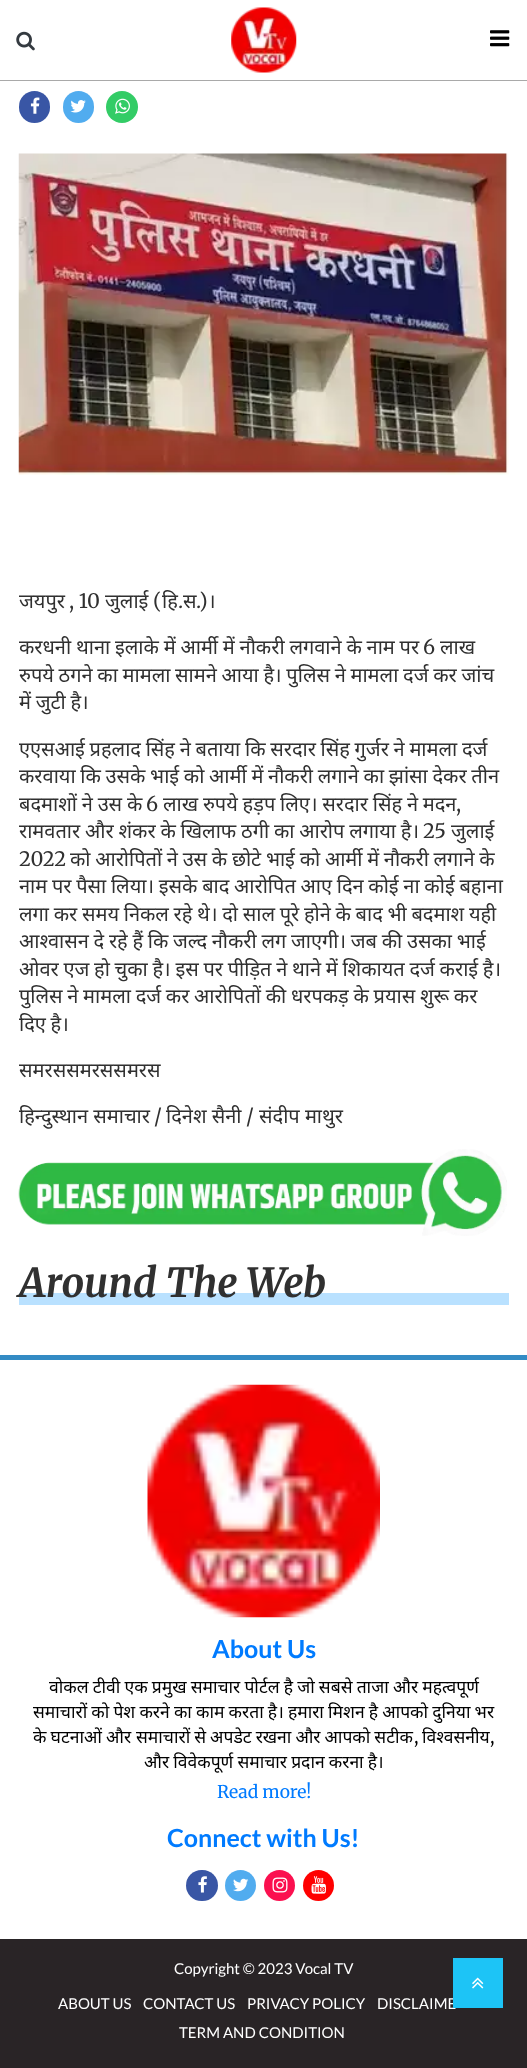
<!DOCTYPE html>
<meta charset="utf-8">
<style>body { margin: 0 } canvas { display: block }</style>
<canvas id="canvas" width="527" height="2068"></canvas>
<script type="module">
  const canvas = document.getElementById("canvas");
  const ctx = canvas.getContext("2d");
  ctx.miterLimit = 4;
  ctx.fontKerning = "normal";
  async function loadImage(src) {
    const img = new Image();
    img.src = src;
    await img.decode();
    return img;
  }

  ctx.fillStyle = "#ffffff";
  ctx.fillRect(0, 0, 527, 2068);
  ctx.fillStyle = "#a9a9a9";
  ctx.fillRect(0, 80, 527, 1);
  ctx.drawImage(await loadImage("img1.png"), 16, 31, 19, 20);
  ctx.drawImage(await loadImage("img2.png"), 231, 7, 66, 66);
  ctx.drawImage(await loadImage("img3.png"), 490, 30, 20, 17);
  ctx.fillStyle = "#3956a5";
  ctx.beginPath();
  ctx.roundRect(19, 91, 31, 32, 15.5);
  ctx.fill();
  ctx.drawImage(await loadImage("img4.png"), 30, 97, 10, 17);
  ctx.fillStyle = "#51acef";
  ctx.beginPath();
  ctx.roundRect(63, 91, 31, 32, 15.5);
  ctx.fill();
  ctx.drawImage(await loadImage("img5.png"), 70, 100, 16, 13);
  ctx.fillStyle = "#33cc66";
  ctx.beginPath();
  ctx.arc(122, 107, 16, 0, Math.PI * 2);
  ctx.fill();
  ctx.drawImage(await loadImage("img6.png"), 115, 98, 15, 16);
  ctx.drawImage(await loadImage("img7.png"), 18, 153, 491, 322);
  ctx.font = "20px Noto Sans";
  ctx.fillStyle = "#303030";
  ctx.fillText("जयपुर", 19, 608);
  ctx.font = "20px Merriweather";
  ctx.fillText(", 10", 69, 608);
  ctx.font = "20px Noto Sans";
  ctx.fillText("जुलाई", 105, 608);
  ctx.font = "20px Merriweather";
  ctx.fillText("(", 153, 608);
  ctx.font = "20px Noto Sans";
  ctx.fillText("हि स", 162, 608);
  ctx.font = "20px Merriweather";
  ctx.fillText(".)", 196, 608);
  ctx.font = "20px Noto Sans";
  ctx.fillText("।", 208, 608);
  ctx.font = "20px Merriweather";
  ctx.fillText(".", 178, 608);
  ctx.wordSpacing = "-0.4px";
  ctx.font = "20px Noto Sans";
  ctx.fillText("करधनी थाना इलाके में आर्मी में नौकरी लगवाने के नाम पर", 19, 654);
  ctx.wordSpacing = "0px";
  ctx.font = "20px Merriweather";
  ctx.fillText("6", 423, 654);
  ctx.font = "20px Noto Sans";
  ctx.fillText("लाख", 440, 654);
  ctx.wordSpacing = "-0.5px";
  ctx.fillText("रुपये ठगने का मामला सामने आया है। पुलिस ने मामला दर्ज कर जांच", 19, 682);
  ctx.fillText("में जुटी है।", 19, 709);
  ctx.fillText("एएसआई प्रहलाद सिंह ने बताया कि सरदार सिंह गुर्जर ने मामला दर्ज", 19, 756);
  ctx.fillText("करवाया कि उसके भाई को आर्मी में नौकरी लगाने का झांसा देकर तीन", 19, 783);
  ctx.wordSpacing = "-0.4px";
  ctx.fillText("बदमाशों ने उस के", 19, 811);
  ctx.wordSpacing = "0px";
  ctx.font = "20px Merriweather";
  ctx.fillText("6", 146, 811);
  ctx.wordSpacing = "-0.4px";
  ctx.font = "20px Noto Sans";
  ctx.fillText("लाख रुपये हड़प लिए। सरदार सिंह ने मदन", 163, 811);
  ctx.wordSpacing = "0px";
  ctx.font = "20px Merriweather";
  ctx.fillText(",", 456, 811);
  ctx.wordSpacing = "-0.4px";
  ctx.font = "20px Noto Sans";
  ctx.fillText("रामवतार और शंकर के खिलाफ ठगी का आरोप लगाया है।", 19, 838);
  ctx.wordSpacing = "0px";
  ctx.font = "20px Merriweather";
  ctx.fillText("25", 423, 838);
  ctx.font = "20px Noto Sans";
  ctx.fillText("जुलाई", 451, 838);
  ctx.font = "20px Merriweather";
  ctx.fillText("2022", 19, 866);
  ctx.wordSpacing = "-0.5px";
  ctx.font = "20px Noto Sans";
  ctx.fillText("को आरोपिताें ने उस के छोटे भाई को आर्मी में नौकरी लगाने के", 70, 866);
  ctx.fillText("नाम पर पैसा लिया। इसके बाद आरोपित आए दिन कोई ना कोई बहाना", 19, 893);
  ctx.fillText("लगा कर समय निकल रहे थे। दो साल पूरे होने के बाद भी बदमाश यही", 19, 921);
  ctx.fillText("आश्वासन दे रहे हैं कि जल्द नौकरी लग जाएगी। जब की उसका भाई", 19, 948);
  ctx.fillText("ओवर एज हो चुका है। इस पर पीड़ित ने थाने में शिकायत दर्ज कराई है।", 19, 976);
  ctx.fillText("पुलिस ने मामला दर्ज कर आरोपिताें की धरपकड़ के प्रयास शुरू कर", 19, 1003);
  ctx.fillText("दिए है।", 19, 1031);
  ctx.wordSpacing = "0px";
  ctx.fillText("समरससमरससमरस", 19, 1077);
  ctx.fillText("हिन्दुस्थान समाचार", 19, 1123);
  ctx.font = "20px Merriweather";
  ctx.fillText("/", 154, 1123);
  ctx.font = "20px Noto Sans";
  ctx.fillText("दिनेश सैनी", 166, 1123);
  ctx.font = "20px Merriweather";
  ctx.fillText("/", 246, 1123);
  ctx.font = "20px Noto Sans";
  ctx.fillText("संदीप माथुर", 259, 1123);
  ctx.drawImage(await loadImage("img8.png"), 18, 1149, 489, 87);
  ctx.fillStyle = "#b9e1ff";
  ctx.fillRect(19, 1293, 490, 12);
  ctx.font = "italic bold 40px Merriweather";
  ctx.fillStyle = "#303030";
  ctx.fillText("Around The Web", 19, 1297);
  ctx.fillStyle = "#338bc4";
  ctx.fillRect(0, 1355, 527, 5);
  ctx.drawImage(await loadImage("img9.png"), 147, 1384, 233, 234);
  ctx.font = "bold 25px Lato";
  ctx.fillStyle = "#007bff";
  ctx.fillText("About Us", 212, 1658);
  ctx.wordSpacing = "-0.4px";
  ctx.font = "17.5px Noto Sans";
  ctx.fillStyle = "#000000";
  ctx.fillText("वोकल टीवी एक प्रमुख समाचार पोर्टल है जो सबसे ताजा", 49, 1693);
  ctx.fillText("और महत्वपूर्ण", 393, 1693);
  ctx.fillText("समाचारों को पेश करने का काम करता है। हमारा मिशन है आपको दुनिया भर", 33, 1718);
  ctx.fillText("के घटनाओं और", 33, 1743);
  ctx.wordSpacing = "-0.5px";
  ctx.fillText("समाचारों से अपडेट रखना और आपको सटीक", 136, 1743);
  ctx.wordSpacing = "0px";
  ctx.font = "17.5px Merriweather";
  ctx.fillText(",", 414, 1743);
  ctx.font = "17.5px Noto Sans";
  ctx.fillText("विश्वसनीय", 422, 1743);
  ctx.font = "17.5px Merriweather";
  ctx.fillText(",", 490, 1743);
  ctx.wordSpacing = "-0.4px";
  ctx.font = "17.5px Noto Sans";
  ctx.fillText("और विवेकपूर्ण समाचार प्रदान करना है।", 144, 1768);
  ctx.wordSpacing = "0px";
  ctx.font = "17.5px Merriweather";
  ctx.fillStyle = "#007bff";
  ctx.fillText("Read more!", 217, 1798);
  ctx.font = "bold 25px Lato";
  ctx.fillText("Connect with Us!", 167, 1847);
  ctx.fillStyle = "#3956a5";
  ctx.beginPath();
  ctx.roundRect(186, 1870, 32, 31, 15.5);
  ctx.fill();
  ctx.drawImage(await loadImage("img10.png"), 198, 1876, 9, 17);
  ctx.fillStyle = "#51acef";
  ctx.beginPath();
  ctx.arc(240.5, 1885.5, 15.5, 0, Math.PI * 2);
  ctx.fill();
  ctx.drawImage(await loadImage("img11.png"), 233, 1878, 16, 14);
  ctx.fillStyle = "#fb104f";
  ctx.beginPath();
  ctx.arc(279.5, 1885.5, 15.5, 0, Math.PI * 2);
  ctx.fill();
  ctx.drawImage(await loadImage("img12.png"), 272, 1877, 16, 16);
  ctx.fillStyle = "#ff0000";
  ctx.beginPath();
  ctx.arc(318.5, 1885.5, 15.5, 0, Math.PI * 2);
  ctx.fill();
  ctx.drawImage(await loadImage("img13.png"), 311, 1876, 15, 18);
  ctx.fillStyle = "#292426";
  ctx.fillRect(0, 1939, 527, 129);
  ctx.font = "15px Lato";
  ctx.fillStyle = "#ffffff";
  ctx.fillText("Copyright © 2023 Vocal TV", 174, 1974);
  ctx.fillText("ABOUT US", 58, 2009);
  ctx.fillText("CONTACT US", 143, 2009);
  ctx.fillText("PRIVACY POLICY", 247, 2009);
  ctx.fillText("DISCLAIME", 377, 2009);
  ctx.fillText("TERM AND CONDITION", 179, 2038);
  ctx.fillStyle = "#1dc4f6";
  ctx.fillRect(453, 1958, 50, 50);
  ctx.drawImage(await loadImage("img14.png"), 472, 1977, 12, 12);
</script>
